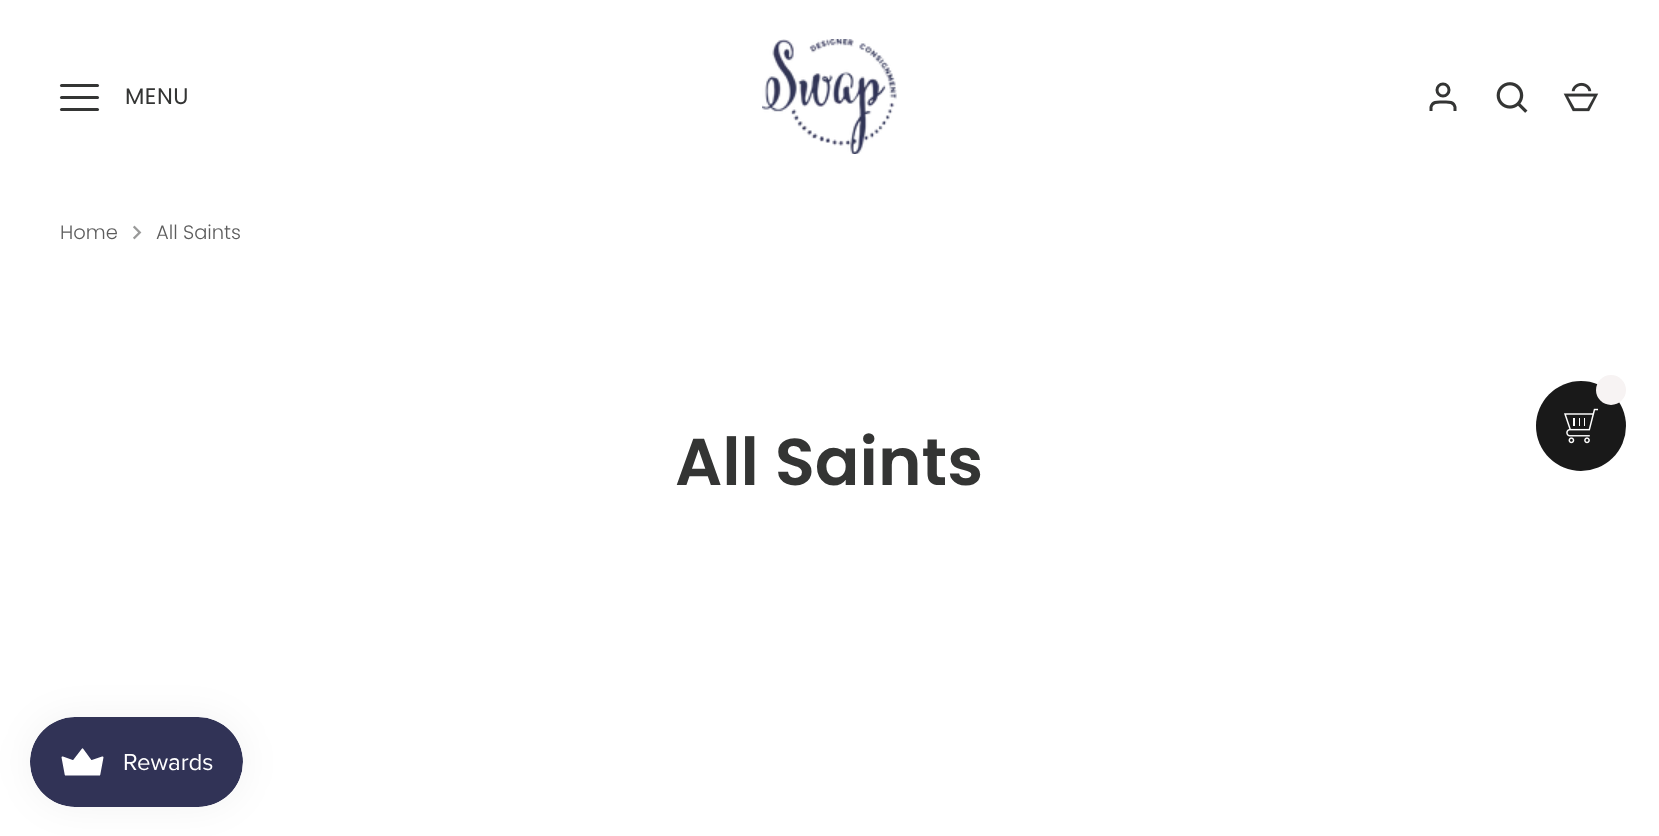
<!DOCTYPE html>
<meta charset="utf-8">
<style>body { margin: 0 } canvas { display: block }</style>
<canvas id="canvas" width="1659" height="836"></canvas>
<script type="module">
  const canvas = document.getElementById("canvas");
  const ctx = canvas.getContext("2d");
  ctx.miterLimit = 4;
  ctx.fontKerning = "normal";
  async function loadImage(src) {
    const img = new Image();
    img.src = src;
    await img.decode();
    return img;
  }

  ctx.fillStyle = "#ffffff";
  ctx.fillRect(0, 0, 1659, 836);
  ctx.fillStyle = "#343534";
  ctx.beginPath();
  ctx.roundRect(60, 84, 39, 3, 1.5);
  ctx.fill();
  ctx.beginPath();
  ctx.roundRect(60, 96, 39, 3, 1.5);
  ctx.fill();
  ctx.beginPath();
  ctx.roundRect(60, 108, 39, 3, 1.5);
  ctx.fill();
  ctx.letterSpacing = "0.5px";
  ctx.font = "22.5px Poppins";
  ctx.fillText("MENU", 125, 104);
  ctx.drawImage(await loadImage("img1.png"), 762, 39, 135, 115);
  ctx.beginPath();
  ctx.arc(1443, 90, 6, 0, Math.PI * 2);
  ctx.strokeStyle = "#343534";
  ctx.lineWidth = 3;
  ctx.stroke();
  ctx.beginPath();
  ctx.moveTo(1455, 111);
  ctx.lineTo(1455, 107);
  ctx.bezierCurveTo(1453.5, 101, 1447.5, 102, 1443, 102);
  ctx.bezierCurveTo(1438.5, 102, 1432.5, 101, 1431, 107);
  ctx.lineTo(1431, 111);
  ctx.stroke();
  ctx.drawImage(await loadImage("img2.png"), 1496, 82, 32, 31);
  ctx.drawImage(await loadImage("img3.png"), 1563, 82, 36, 30);
  ctx.letterSpacing = "0px";
  ctx.font = "300 19.5px Poppins";
  ctx.fillStyle = "#5d5d5d";
  ctx.fillText("Home", 60, 239);
  ctx.drawImage(await loadImage("img4.png"), 133, 225, 9, 15);
  ctx.fillText("All Saints", 156, 239);
  ctx.font = "600 66px Poppins";
  ctx.fillStyle = "#343534";
  ctx.fillText("All Saints", 675, 485);
  ctx.fillStyle = "#191919";
  ctx.beginPath();
  ctx.arc(1581, 426, 45, 0, Math.PI * 2);
  ctx.fill();
  ctx.fillStyle = "#f7f3f3";
  ctx.beginPath();
  ctx.arc(1611, 390, 15, 0, Math.PI * 2);
  ctx.fill();
  ctx.drawImage(await loadImage("img5.png"), 1564, 408, 34, 36);
  ctx.fillStyle = "rgba(0, 0, 0, 0.05)";
  ctx.filter = "blur(19px)";
  ctx.beginPath();
  ctx.roundRect(30, 717, 213, 90, 45);
  ctx.fill();
  ctx.filter = "none";
  ctx.drawImage(await loadImage("img6.png"), 30, 717, 213, 90);
</script>
